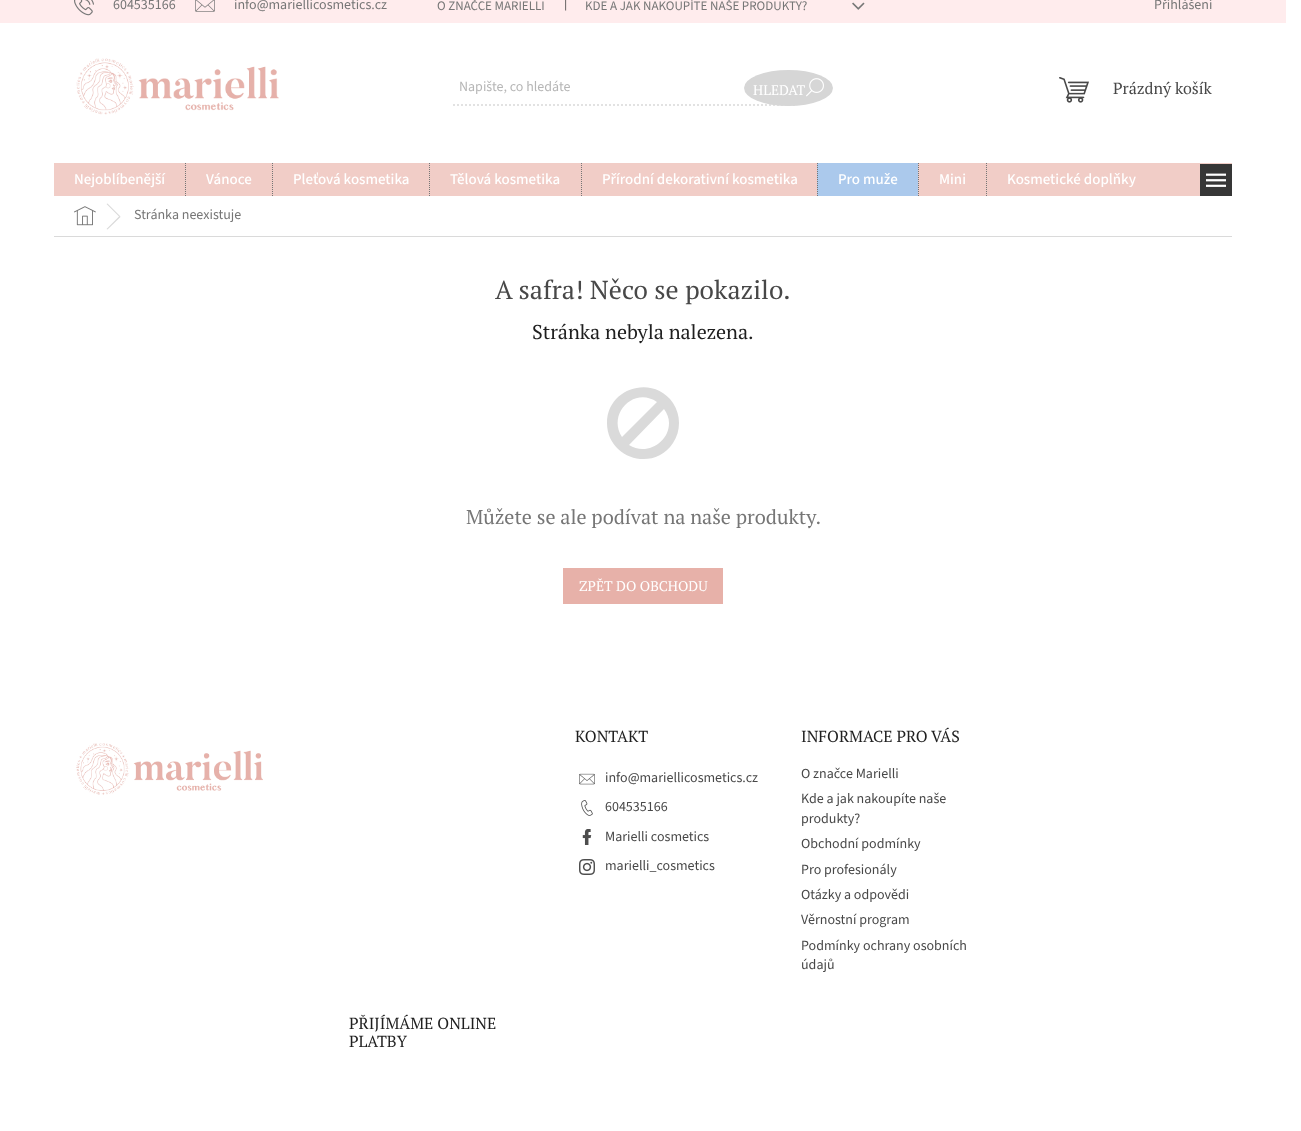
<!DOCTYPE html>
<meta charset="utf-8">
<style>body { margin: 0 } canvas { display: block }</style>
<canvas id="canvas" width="1301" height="1131"></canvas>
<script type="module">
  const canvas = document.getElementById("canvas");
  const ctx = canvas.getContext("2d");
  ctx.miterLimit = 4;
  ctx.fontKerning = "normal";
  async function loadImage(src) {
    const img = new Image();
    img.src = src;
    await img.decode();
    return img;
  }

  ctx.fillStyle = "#ffffff";
  ctx.fillRect(0, 0, 1301, 1131);
  ctx.fillStyle = "#ffeced";
  ctx.fillRect(0, 0, 1286, 23);
  ctx.drawImage(await loadImage("img1.png"), 74, 0, 20, 16);
  ctx.font = "14px 'Source Sans 3'";
  ctx.fillStyle = "#767676";
  ctx.fillText("604535166", 113, 9);
  ctx.drawImage(await loadImage("img2.png"), 195, 0, 20, 12);
  ctx.fillText("info@mariellicosmetics.cz", 234, 9);
  ctx.font = "13px 'Source Sans 3'";
  ctx.fillText("O ZNAČCE MARIELLI", 437, 10);
  ctx.font = "14px 'Source Sans 3'";
  ctx.fillStyle = "#484848";
  ctx.fillText("|", 564, 7);
  ctx.font = "13px 'Source Sans 3'";
  ctx.fillStyle = "#767676";
  ctx.fillText("KDE A JAK NAKOUPÍTE NAŠE PRODUKTY?", 585, 10);
  ctx.drawImage(await loadImage("img3.png"), 852, 2, 13, 8);
  ctx.font = "14px 'Source Sans 3'";
  ctx.fillText("Přihlášení", 1154, 9);
  ctx.drawImage(await loadImage("img4.png"), 76, 58, 203, 57);
  ctx.beginPath();
  ctx.moveTo(453, 105);
  ctx.lineTo(795, 105);
  ctx.strokeStyle = "#e2e2e2";
  ctx.lineWidth = 2;
  ctx.setLineDash([2, 2]);
  ctx.stroke();
  ctx.fillStyle = "#b6b6b6";
  ctx.fillText("Napište, co hledáte", 459, 91);
  ctx.fillStyle = "#d6d6d6";
  ctx.beginPath();
  ctx.ellipse(788.5, 88, 44.5, 18, 0, 0, Math.PI * 2);
  ctx.fill();
  ctx.font = "14px PT Serif";
  ctx.fillStyle = "#ffffff";
  ctx.fillText("HLEDAT", 753, 95);
  ctx.drawImage(await loadImage("img5.png"), 806, 78, 18, 19);
  ctx.drawImage(await loadImage("img6.png"), 1059, 77, 30, 26);
  ctx.font = "16px PT Serif";
  ctx.fillStyle = "#484848";
  ctx.fillText("Prázdný košík", 1113, 94);
  ctx.fillStyle = "#f1cdc7";
  ctx.fillRect(54, 163, 1178, 33);
  ctx.font = "500 15px 'Source Sans 3'";
  ctx.fillStyle = "#ffffff";
  ctx.fillText("Nejoblíbenější", 74, 184);
  ctx.beginPath();
  ctx.moveTo(185.5, 163);
  ctx.lineTo(185.5, 196);
  ctx.strokeStyle = "#757575";
  ctx.lineWidth = 1;
  ctx.setLineDash([1, 1]);
  ctx.stroke();
  ctx.fillText("Vánoce", 206, 184);
  ctx.beginPath();
  ctx.moveTo(272.5, 163);
  ctx.lineTo(272.5, 196);
  ctx.stroke();
  ctx.fillText("Pleťová kosmetika", 293, 184);
  ctx.beginPath();
  ctx.moveTo(429.5, 163);
  ctx.lineTo(429.5, 196);
  ctx.stroke();
  ctx.fillText("Tělová kosmetika", 450, 184);
  ctx.beginPath();
  ctx.moveTo(581.5, 163);
  ctx.lineTo(581.5, 196);
  ctx.stroke();
  ctx.fillText("Přírodní dekorativní kosmetika", 602, 184);
  ctx.fillStyle = "#abc9ec";
  ctx.fillRect(817, 163, 101, 33);
  ctx.beginPath();
  ctx.moveTo(817.5, 163);
  ctx.lineTo(817.5, 196);
  ctx.stroke();
  ctx.fillStyle = "#ffffff";
  ctx.fillText("Pro muže", 838, 184);
  ctx.beginPath();
  ctx.moveTo(918.5, 163);
  ctx.lineTo(918.5, 196);
  ctx.stroke();
  ctx.fillText("Mini", 939, 184);
  ctx.beginPath();
  ctx.moveTo(986.5, 163);
  ctx.lineTo(986.5, 196);
  ctx.stroke();
  ctx.fillText("Kosmetické doplňky", 1007, 184);
  ctx.fillStyle = "#363636";
  ctx.fillRect(1200, 164, 32, 32);
  ctx.drawImage(await loadImage("img7.png"), 1206, 173, 20, 14);
  ctx.fillStyle = "#dadada";
  ctx.fillRect(54, 236, 1178, 1);
  ctx.drawImage(await loadImage("img8.png"), 74, 206, 22, 20);
  ctx.beginPath();
  ctx.moveTo(106.5, 204);
  ctx.lineTo(107.5, 203.5);
  ctx.lineTo(120.5, 216.5);
  ctx.lineTo(119.5, 217);
  ctx.closePath();
  ctx.fill();
  ctx.beginPath();
  ctx.moveTo(119.5, 216);
  ctx.lineTo(120.5, 217);
  ctx.lineTo(107.5, 229.5);
  ctx.lineTo(106.5, 229);
  ctx.closePath();
  ctx.fill();
  ctx.font = "14px 'Source Sans 3'";
  ctx.fillStyle = "#767676";
  ctx.fillText("Stránka neexistuje", 134, 219);
  ctx.font = "26px PT Serif";
  ctx.fillStyle = "#484848";
  ctx.fillText("A safra! Něco se pokazilo.", 495, 299);
  ctx.font = "20px PT Serif";
  ctx.fillStyle = "#1f1f1f";
  ctx.fillText("Stránka nebyla nalezena.", 532, 339);
  ctx.fillStyle = "#dadada";
  ctx.beginPath();
  ctx.moveTo(669, 423);
  ctx.bezierCurveTo(669, 418, 667, 413, 664, 409);
  ctx.lineTo(629, 445);
  ctx.bezierCurveTo(646, 456, 669, 443, 669, 423);
  ctx.closePath();
  ctx.moveTo(622, 437);
  ctx.lineTo(657, 402);
  ctx.bezierCurveTo(634, 386, 607, 414, 622, 437);
  ctx.closePath();
  ctx.moveTo(679, 423);
  ctx.bezierCurveTo(679, 430, 677, 437, 673, 443);
  ctx.bezierCurveTo(653, 473, 607, 458, 607, 423);
  ctx.bezierCurveTo(607, 388, 653, 374, 673, 403);
  ctx.bezierCurveTo(677, 409, 679, 416, 679, 423);
  ctx.closePath();
  ctx.fill();
  ctx.fillStyle = "#767676";
  ctx.fillText("Můžete se ale podívat na naše produkty.", 466, 524);
  ctx.fillStyle = "#e7b1a9";
  ctx.fillRect(563, 568, 160, 36);
  ctx.font = "14px PT Serif";
  ctx.fillStyle = "#ffffff";
  ctx.fillText("ZPĚT DO OBCHODU", 579, 591);
  ctx.drawImage(await loadImage("img9.png"), 76, 743, 187, 52);
  ctx.font = "16px PT Serif";
  ctx.fillStyle = "#1f1f1f";
  ctx.fillText("KONTAKT", 575, 742);
  ctx.drawImage(await loadImage("img10.png"), 579, 773, 16, 12);
  ctx.font = "14px 'Source Sans 3'";
  ctx.fillStyle = "#484848";
  ctx.fillText("info@mariellicosmetics.cz", 605, 782);
  ctx.drawImage(await loadImage("img11.png"), 581, 800, 12, 16);
  ctx.fillText("604535166", 605, 811);
  ctx.drawImage(await loadImage("img12.png"), 582, 829, 10, 16);
  ctx.fillText("Marielli cosmetics", 605, 841);
  ctx.drawImage(await loadImage("img13.png"), 579, 859, 16, 16);
  ctx.fillText("marielli_cosmetics", 605, 870);
  ctx.font = "16px PT Serif";
  ctx.fillStyle = "#1f1f1f";
  ctx.fillText("INFORMACE PRO VÁS", 801, 742);
  ctx.font = "14px 'Source Sans 3'";
  ctx.fillStyle = "#484848";
  ctx.fillText("O značce Marielli", 801, 778);
  ctx.fillText("Kde a jak nakoupíte naše", 801, 803);
  ctx.fillText("produkty?", 801, 823);
  ctx.fillText("Obchodní podmínky", 801, 848);
  ctx.fillText("Pro profesionály", 801, 874);
  ctx.fillText("Otázky a odpovědi", 801, 899);
  ctx.fillText("Věrnostní program", 801, 924);
  ctx.fillText("Podmínky ochrany osobních", 801, 950);
  ctx.fillText("údajů", 801, 969);
  ctx.font = "16px PT Serif";
  ctx.fillStyle = "#1f1f1f";
  ctx.fillText("PŘIJÍMÁME ONLINE", 349, 1029);
  ctx.fillText("PLATBY", 349, 1047);
</script>
